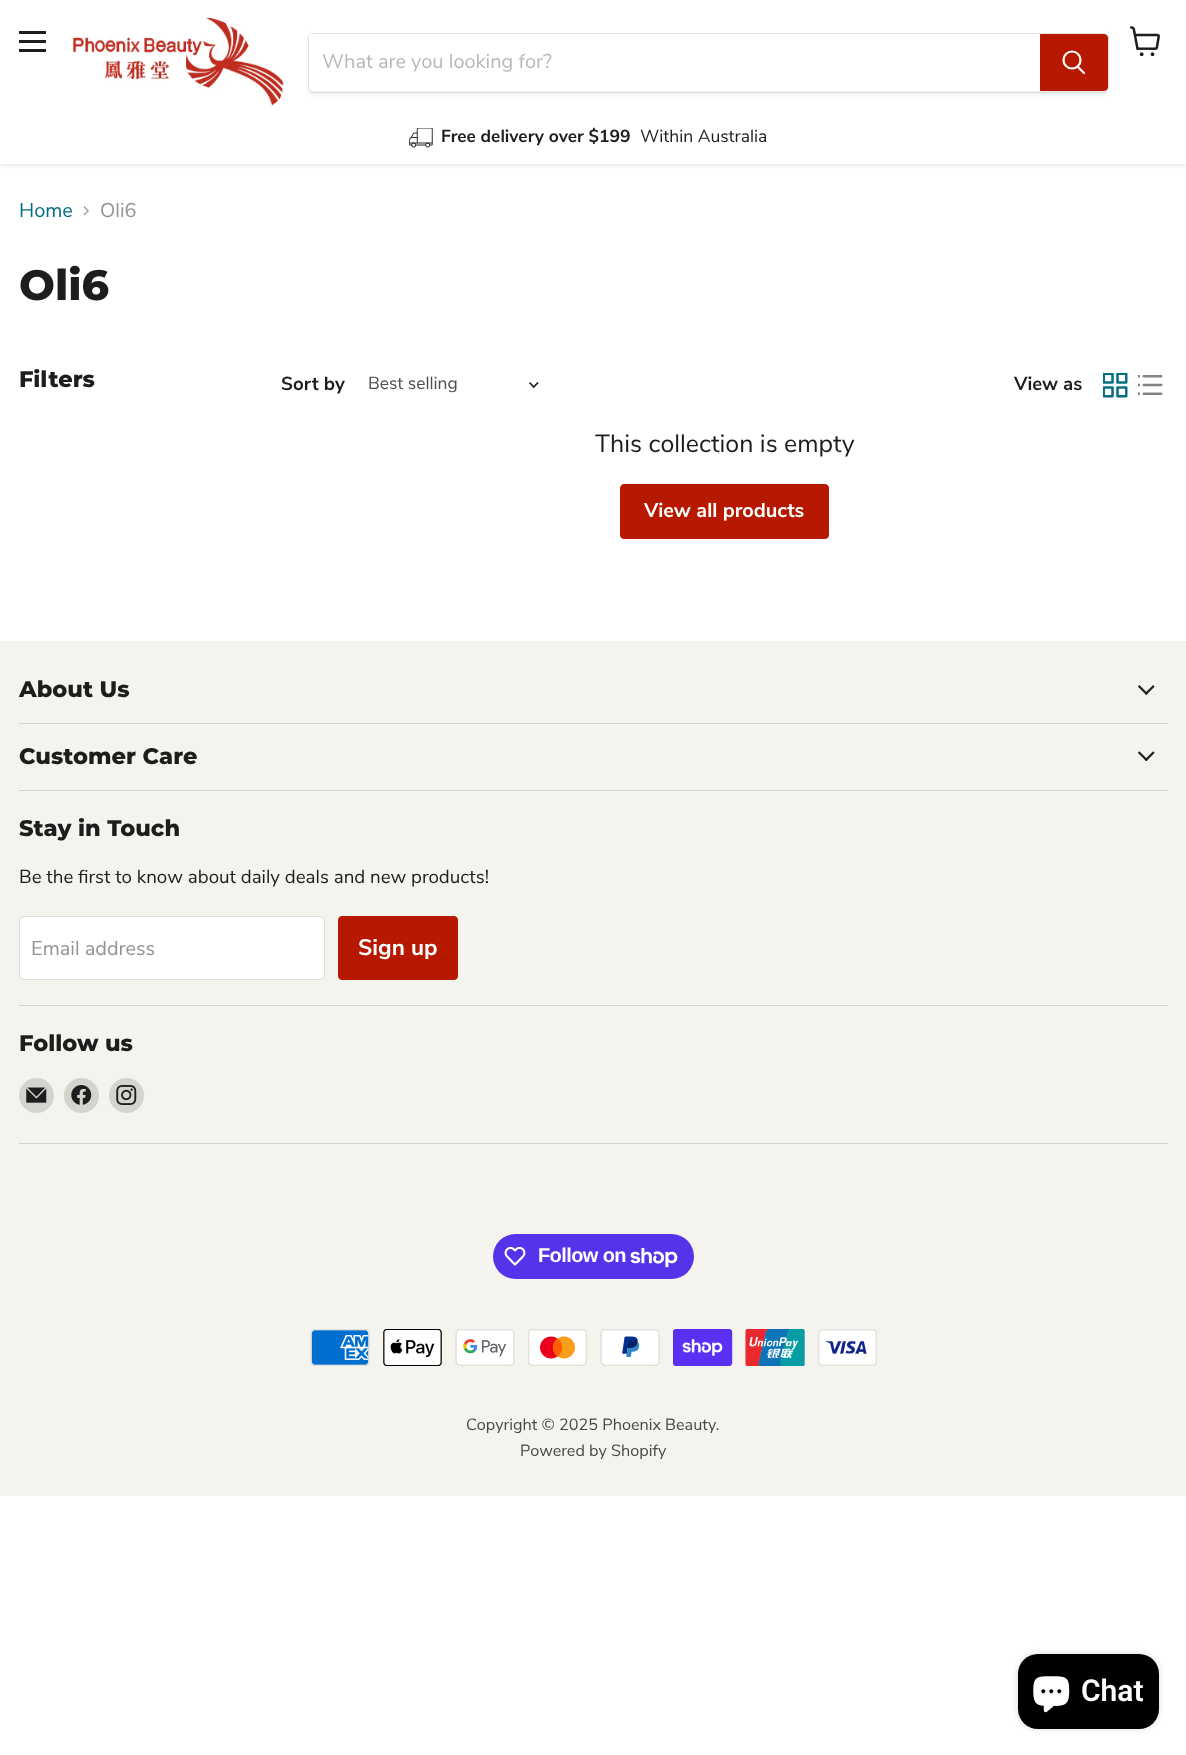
<!DOCTYPE html>
<meta charset="utf-8">
<style>body { margin: 0 } canvas { display: block }</style>
<canvas id="canvas" width="1186" height="1755"></canvas>
<script type="module">
  const canvas = document.getElementById("canvas");
  const ctx = canvas.getContext("2d");
  ctx.miterLimit = 4;
  ctx.fontKerning = "normal";
  async function loadImage(src) {
    const img = new Image();
    img.src = src;
    await img.decode();
    return img;
  }

  ctx.fillStyle = "#ffffff";
  ctx.fillRect(0, 0, 1186, 1755);
  ctx.fillStyle = "rgba(128, 128, 128, 0.25)";
  ctx.filter = "blur(2.5px)";
  ctx.beginPath();
  ctx.rect(0, 1, 1186, 164);
  ctx.fill();
  ctx.filter = "none";
  ctx.fillStyle = "#ffffff";
  ctx.fillRect(0, 0, 1186, 164);
  ctx.fillStyle = "#1d1d1d";
  ctx.fillRect(19, 31, 27, 3);
  ctx.fillRect(19, 40, 27, 3);
  ctx.fillRect(19, 49, 27, 3);
  ctx.drawImage(await loadImage("img1.png"), 1130, 26, 30, 30);
  ctx.drawImage(await loadImage("img2.png"), 72, 17, 212, 89);
  ctx.fillStyle = "rgba(128, 128, 128, 0.11)";
  ctx.filter = "blur(2px)";
  ctx.beginPath();
  ctx.roundRect(308, 35, 801, 60, 5);
  ctx.fill();
  ctx.filter = "none";
  ctx.beginPath();
  ctx.roundRect(308.5, 33.5, 800, 59, 4.5);
  ctx.strokeStyle = "rgba(128, 128, 128, 0.2)";
  ctx.stroke();
  ctx.fillStyle = "#ffffff";
  ctx.beginPath();
  ctx.roundRect(309, 34, 731, 57, [4, 0, 0, 4]);
  ctx.fill();
  ctx.font = "20px Nunito Sans";
  ctx.fillStyle = "#b8b8b8";
  ctx.fillText("What are you looking for?", 322, 68);
  ctx.fillStyle = "#b61800";
  ctx.beginPath();
  ctx.roundRect(1040.5, 34.5, 67, 56, [0, 3.5, 3.5, 0]);
  ctx.fill();
  ctx.strokeStyle = "#b61800";
  ctx.stroke();
  ctx.beginPath();
  ctx.moveTo(1084, 73);
  ctx.lineTo(1078, 67);
  ctx.strokeStyle = "#ffffff";
  ctx.lineWidth = 2.2;
  ctx.lineCap = "round";
  ctx.stroke();
  ctx.beginPath();
  ctx.arc(1072, 60, 8.5, 0, Math.PI * 2);
  ctx.stroke();
  ctx.drawImage(await loadImage("img3.png"), 409, 128, 24, 20);
  ctx.font = "bold 17.5px Nunito Sans";
  ctx.fillStyle = "#1d1d1d";
  ctx.fillText("Free delivery over $199", 441, 142);
  ctx.font = "17.5px Nunito Sans";
  ctx.fillText("Within Australia", 640, 142);
  ctx.font = "20px Nunito Sans";
  ctx.fillStyle = "#046e82";
  ctx.fillText("Home", 19, 217);
  ctx.drawImage(await loadImage("img4.png"), 83, 206, 6, 10);
  ctx.fillStyle = "#949494";
  ctx.fillText("Oli6", 100, 217);
  ctx.font = "800 42.5px Montserrat";
  ctx.fillStyle = "#1d1d1d";
  ctx.fillText("Oli6", 19, 300);
  ctx.font = "800 22.5px Montserrat";
  ctx.fillText("Filters", 19, 387);
  ctx.font = "bold 18.75px Nunito Sans";
  ctx.fillText("Sort by", 281, 390);
  ctx.font = "17.5px Nunito Sans";
  ctx.fillStyle = "#4d4d4d";
  ctx.fillText("Best selling", 368, 389);
  ctx.drawImage(await loadImage("img5.png"), 529, 382, 10, 6);
  ctx.font = "bold 18.75px Nunito Sans";
  ctx.fillStyle = "#1d1d1d";
  ctx.fillText("View as", 1014, 390);
  ctx.drawImage(await loadImage("img6.png"), 1103, 373, 25, 25);
  ctx.drawImage(await loadImage("img7.png"), 1138, 375, 25, 20);
  ctx.font = "25px Nunito Sans";
  ctx.fillText("This collection is empty", 595, 452);
  ctx.fillStyle = "#b61800";
  ctx.beginPath();
  ctx.roundRect(620.5, 484.5, 208, 54, 3.5);
  ctx.fill();
  ctx.strokeStyle = "#b61800";
  ctx.lineWidth = 1;
  ctx.stroke();
  ctx.font = "bold 20px Nunito Sans";
  ctx.fillStyle = "#ffffff";
  ctx.fillText("View all products", 644, 517);
  ctx.fillStyle = "#f5f3ed";
  ctx.fillRect(0, 641, 1186, 855);
  ctx.fillStyle = "#d5d3ce";
  ctx.fillRect(19, 723, 1149, 1);
  ctx.font = "800 22.5px Montserrat";
  ctx.fillStyle = "#1d1d1d";
  ctx.fillText("About Us", 19, 697);
  ctx.drawImage(await loadImage("img8.png"), 1138, 685, 17, 10);
  ctx.fillStyle = "#d5d3ce";
  ctx.fillRect(19, 790, 1149, 1);
  ctx.fillStyle = "#1d1d1d";
  ctx.fillText("Customer Care", 19, 764);
  ctx.drawImage(await loadImage("img9.png"), 1138, 751, 17, 10);
  ctx.fillStyle = "#d5d3ce";
  ctx.fillRect(19, 1005, 1149, 1);
  ctx.fillStyle = "#1d1d1d";
  ctx.fillText("Stay in Touch", 19, 836);
  ctx.font = "18.75px Nunito Sans";
  ctx.fillText("Be the first to know about daily deals and new products!", 19, 883);
  ctx.fillStyle = "#ffffff";
  ctx.beginPath();
  ctx.roundRect(19.5, 916.5, 305, 63, 3.5);
  ctx.fill();
  ctx.strokeStyle = "#dddddd";
  ctx.stroke();
  ctx.font = "20px Nunito Sans";
  ctx.fillStyle = "#949494";
  ctx.fillText("Email address", 31, 955);
  ctx.fillStyle = "#b61800";
  ctx.beginPath();
  ctx.roundRect(338.5, 916.5, 119, 63, 3.5);
  ctx.fill();
  ctx.strokeStyle = "#b61800";
  ctx.stroke();
  ctx.font = "bold 22.5px Nunito Sans";
  ctx.fillStyle = "#ffffff";
  ctx.fillText("Sign up", 358, 955);
  ctx.fillStyle = "#d5d3ce";
  ctx.fillRect(19, 1143, 1149, 1);
  ctx.font = "800 22.5px Montserrat";
  ctx.fillStyle = "#1d1d1d";
  ctx.fillText("Follow us", 19, 1051);
  ctx.fillStyle = "#d5d3ce";
  ctx.beginPath();
  ctx.arc(36.5, 1095.5, 17.5, 0, Math.PI * 2);
  ctx.fill();
  ctx.drawImage(await loadImage("img10.png"), 26, 1087, 21, 16);
  ctx.beginPath();
  ctx.arc(81.5, 1095.5, 17.5, 0, Math.PI * 2);
  ctx.fill();
  ctx.drawImage(await loadImage("img11.png"), 71, 1085, 21, 20);
  ctx.beginPath();
  ctx.arc(126.5, 1095.5, 17.5, 0, Math.PI * 2);
  ctx.fill();
  ctx.drawImage(await loadImage("img12.png"), 116, 1085, 21, 20);
  ctx.fillStyle = "#5433eb";
  ctx.beginPath();
  ctx.roundRect(493, 1234, 201, 45, 22.5);
  ctx.fill();
  ctx.drawImage(await loadImage("img13.png"), 504, 1246, 22, 20);
  ctx.letterSpacing = "-0.6px";
  ctx.font = "bold 20px Liberation Sans";
  ctx.fillStyle = "#ffffff";
  ctx.fillText("Follow on", 538, 1262);
  ctx.drawImage(await loadImage("img14.png"), 630, 1248, 48, 20);
  ctx.drawImage(await loadImage("img15.png"), 310, 1329, 60, 37);
  ctx.drawImage(await loadImage("img16.png"), 383, 1329, 59, 37);
  ctx.drawImage(await loadImage("img17.png"), 455, 1329, 60, 37);
  ctx.drawImage(await loadImage("img18.png"), 528, 1329, 59, 37);
  ctx.drawImage(await loadImage("img19.png"), 600, 1329, 60, 37);
  ctx.drawImage(await loadImage("img20.png"), 673, 1329, 60, 37);
  ctx.drawImage(await loadImage("img21.png"), 745, 1329, 60, 37);
  ctx.drawImage(await loadImage("img22.png"), 818, 1329, 59, 37);
  ctx.letterSpacing = "0px";
  ctx.font = "16.25px Nunito Sans";
  ctx.fillStyle = "#484847";
  ctx.fillText("Copyright © 2025 Phoenix Beauty.", 466, 1430);
  ctx.fillText("Powered by Shopify", 520, 1456);
  ctx.fillStyle = "rgba(0, 0, 0, 0.15)";
  ctx.filter = "blur(3px)";
  ctx.beginPath();
  ctx.roundRect(1018, 1654, 141, 75, 20);
  ctx.fill();
  ctx.filter = "none";
  ctx.fillStyle = "#000000";
  ctx.beginPath();
  ctx.roundRect(1018, 1654, 141, 75, 20);
  ctx.fill();
  ctx.drawImage(await loadImage("img23.png"), 1033, 1676, 37, 37);
  ctx.font = "600 30px Roboto";
  ctx.fillStyle = "#ffffff";
  ctx.fillText("Chat", 1081, 1701);
</script>
